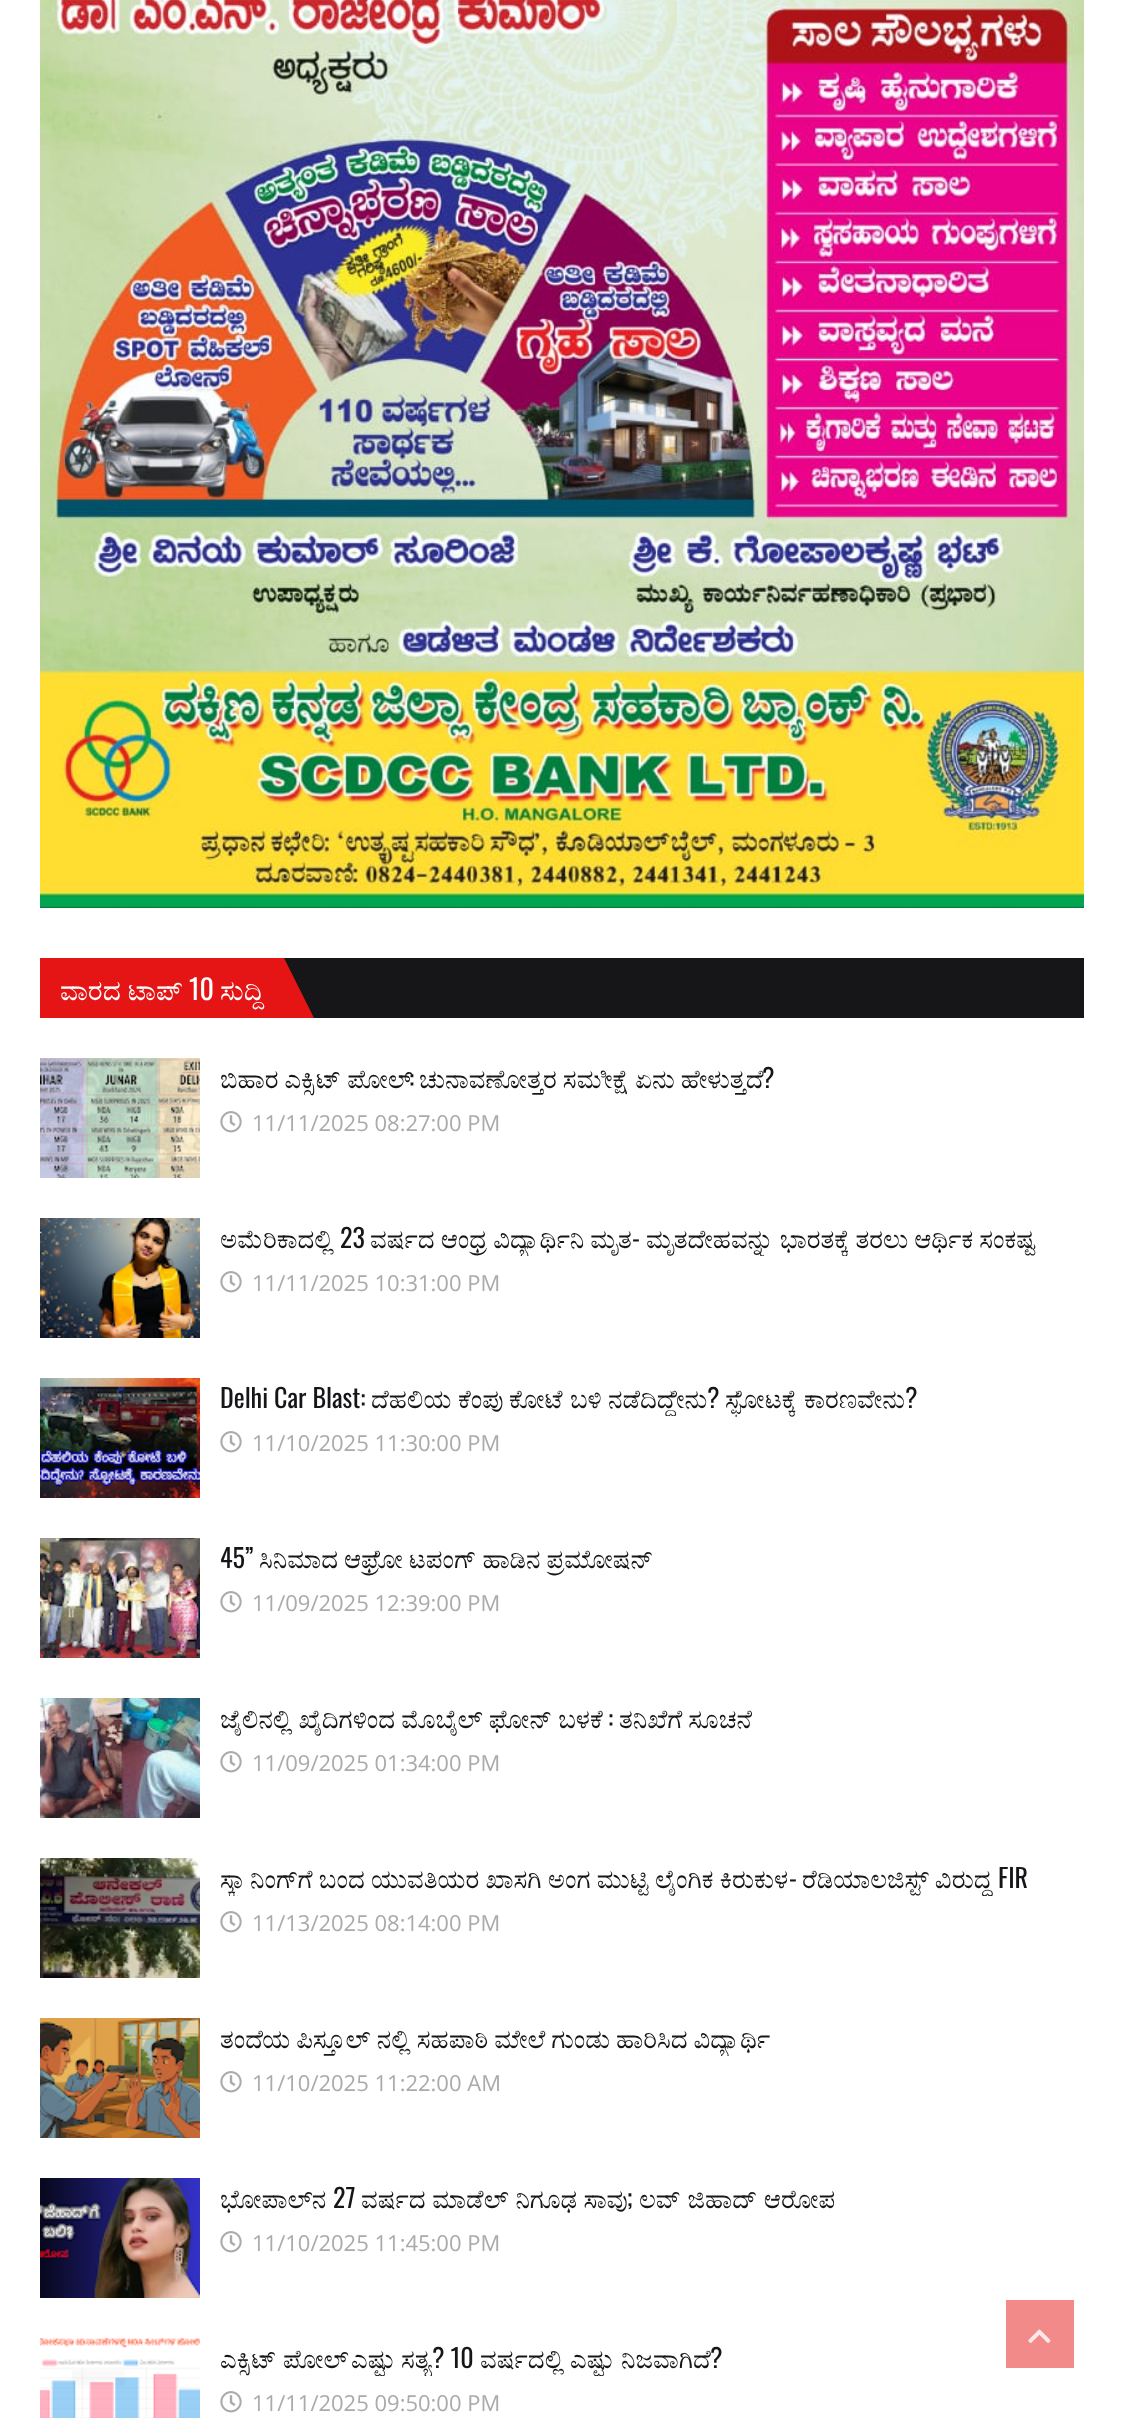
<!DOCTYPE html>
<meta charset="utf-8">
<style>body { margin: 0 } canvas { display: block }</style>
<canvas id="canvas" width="1124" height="2418"></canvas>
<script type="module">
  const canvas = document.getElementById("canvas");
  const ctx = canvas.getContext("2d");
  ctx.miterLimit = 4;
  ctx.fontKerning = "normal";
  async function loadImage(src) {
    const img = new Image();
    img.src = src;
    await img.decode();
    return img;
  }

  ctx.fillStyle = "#ffffff";
  ctx.fillRect(0, 0, 1124, 2418);
  ctx.drawImage(await loadImage("img1.png"), 40, 0, 1044, 908);
  ctx.fillStyle = "#161619";
  ctx.fillRect(284, 958, 800, 60);
  ctx.fillStyle = "#e51515";
  ctx.fillRect(40, 958, 244, 60);
  ctx.font = "28px FreeSerif";
  ctx.fillStyle = "#ffffff";
  ctx.fillText("ವಾರದ ಟಾಪ್", 60, 1000);
  ctx.font = "28px Oswald";
  ctx.fillText("10", 189, 1000);
  ctx.font = "28px FreeSerif";
  ctx.fillText("ಸುದ್ದಿ", 220, 1000);
  ctx.fillStyle = "#e51515";
  ctx.beginPath();
  ctx.moveTo(284, 1018);
  ctx.lineTo(284, 958);
  ctx.lineTo(314, 1018);
  ctx.closePath();
  ctx.fill();
  ctx.drawImage(await loadImage("img2.png"), 40, 1058, 160, 120);
  ctx.wordSpacing = "-0.5px";
  ctx.font = "26px FreeSerif";
  ctx.fillStyle = "#161619";
  ctx.fillText("ಬಿಹಾರ ಎಕ್ಸಿಟ್ ಪೋಲ್", 220, 1088);
  ctx.wordSpacing = "0px";
  ctx.font = "26px Oswald";
  ctx.fillText(":", 409, 1088);
  ctx.wordSpacing = "-0.5px";
  ctx.font = "26px FreeSerif";
  ctx.fillText("ಚುನಾವಣೋತ್ತರ ಸಮೀಕ್ಷೆ ಏನು ಹೇಳುತ್ತದೆ", 419, 1088);
  ctx.wordSpacing = "0px";
  ctx.font = "26px Oswald";
  ctx.fillText("?", 762, 1088);
  ctx.drawImage(await loadImage("img3.png"), 220, 1111, 22, 22);
  ctx.font = "22px Open Sans";
  ctx.fillStyle = "#aaaaaa";
  ctx.fillText("11/11/2025 08:27:00 PM", 252, 1131);
  ctx.drawImage(await loadImage("img4.png"), 40, 1218, 160, 120);
  ctx.font = "26px FreeSerif";
  ctx.fillStyle = "#161619";
  ctx.fillText("ಅಮೆರಿಕಾದಲ್ಲಿ", 220, 1248);
  ctx.font = "26px Oswald";
  ctx.fillText("23", 340, 1248);
  ctx.save();
  ctx.beginPath();
  ctx.rect(220, 1218, 864, 38);
  ctx.clip();
  ctx.wordSpacing = "-0.5px";
  ctx.font = "26px FreeSerif";
  ctx.fillText("ವರ್ಷದ ಆಂಧ್ರ ವಿದ್ಯಾರ್ಥಿನಿ ಮೃತ", 370, 1248);
  ctx.restore();
  ctx.fillText("-", 632, 1248);
  ctx.save();
  ctx.beginPath();
  ctx.rect(220, 1218, 864, 38);
  ctx.clip();
  ctx.wordSpacing = "-0.5px";
  ctx.font = "26px FreeSerif";
  ctx.fillText("ಮೃತದೇಹವನ್ನು ಭಾರತಕ್ಕೆ ತರಲು ಆರ್ಥಿಕ ಸಂಕಷ್ಟ", 646, 1248);
  ctx.restore();
  ctx.drawImage(await loadImage("img3.png"), 220, 1271, 22, 22);
  ctx.font = "22px Open Sans";
  ctx.fillStyle = "#aaaaaa";
  ctx.fillText("11/11/2025 10:31:00 PM", 252, 1291);
  ctx.drawImage(await loadImage("img5.png"), 40, 1378, 160, 120);
  ctx.font = "26px Oswald";
  ctx.fillStyle = "#161619";
  ctx.fillText("Delhi Car Blast:", 220, 1408);
  ctx.font = "26px FreeSerif";
  ctx.fillText("ದೆಹಲಿಯ", 371, 1408);
  ctx.fillText("ಕೆಂಪು", 458, 1408);
  ctx.fillText("ಕೋಟೆ", 509, 1408);
  ctx.save();
  ctx.beginPath();
  ctx.rect(220, 1378, 864, 38);
  ctx.clip();
  ctx.fillText("ನಡೆದಿದ್ದೇನು", 608, 1408);
  ctx.restore();
  ctx.font = "26px Oswald";
  ctx.fillText("?", 707, 1408);
  ctx.fillText("?", 905, 1408);
  ctx.font = "26px FreeSerif";
  ctx.fillText("ಬಳಿ", 570, 1408);
  ctx.fillText("ಸ್ಫೋಟಕ್ಕೆ", 725, 1408);
  ctx.fillText("ಕಾರಣವೇನು", 804, 1408);
  ctx.drawImage(await loadImage("img3.png"), 220, 1431, 22, 22);
  ctx.font = "22px Open Sans";
  ctx.fillStyle = "#aaaaaa";
  ctx.fillText("11/10/2025 11:30:00 PM", 252, 1451);
  ctx.drawImage(await loadImage("img6.png"), 40, 1538, 160, 120);
  ctx.font = "26px Oswald";
  ctx.fillStyle = "#161619";
  ctx.fillText("45”", 220, 1568);
  ctx.save();
  ctx.beginPath();
  ctx.rect(220, 1538, 864, 38);
  ctx.clip();
  ctx.wordSpacing = "-0.5px";
  ctx.font = "26px FreeSerif";
  ctx.fillText("ಸಿನಿಮಾದ ಆಫ್ರೋ ಟಪಂಗ್ ಹಾಡಿನ ಪ್ರಮೋಷನ್", 259, 1568);
  ctx.restore();
  ctx.drawImage(await loadImage("img3.png"), 220, 1591, 22, 22);
  ctx.font = "22px Open Sans";
  ctx.fillStyle = "#aaaaaa";
  ctx.fillText("11/09/2025 12:39:00 PM", 252, 1611);
  ctx.drawImage(await loadImage("img7.png"), 40, 1698, 160, 120);
  ctx.save();
  ctx.beginPath();
  ctx.rect(220, 1698, 864, 38);
  ctx.clip();
  ctx.wordSpacing = "-0.5px";
  ctx.font = "26px FreeSerif";
  ctx.fillStyle = "#161619";
  ctx.fillText("ಜೈಲಿನಲ್ಲಿ‌ ಖೈದಿಗಳಿಂದ ಮೊಬೈಲ್ ಫೋನ್ ಬಳಕೆ", 220, 1728);
  ctx.restore();
  ctx.font = "26px Oswald";
  ctx.fillStyle = "#161619";
  ctx.fillText(":", 608, 1728);
  ctx.wordSpacing = "-0.5px";
  ctx.font = "26px FreeSerif";
  ctx.fillText("ತನಿಖೆಗೆ ಸೂಚನೆ", 619, 1728);
  ctx.drawImage(await loadImage("img3.png"), 220, 1751, 22, 22);
  ctx.wordSpacing = "0px";
  ctx.font = "22px Open Sans";
  ctx.fillStyle = "#aaaaaa";
  ctx.fillText("11/09/2025 01:34:00 PM", 252, 1771);
  ctx.drawImage(await loadImage("img8.png"), 40, 1858, 160, 120);
  ctx.save();
  ctx.beginPath();
  ctx.rect(220, 1858, 864, 38);
  ctx.clip();
  ctx.wordSpacing = "-0.25px";
  ctx.font = "26px FreeSerif";
  ctx.fillStyle = "#161619";
  ctx.fillText("ಸ್ಕ್ಯಾನಿಂಗ್‌ಗೆ ಬಂದ ಯುವತಿಯರ ಖಾಸಗಿ ಅಂಗ ಮುಟ್ಟಿ ಲೈಂಗಿಕ ಕಿರುಕುಳ", 220, 1888);
  ctx.restore();
  ctx.font = "26px Oswald";
  ctx.fillStyle = "#161619";
  ctx.fillText("-", 789, 1888);
  ctx.save();
  ctx.beginPath();
  ctx.rect(220, 1858, 864, 38);
  ctx.clip();
  ctx.wordSpacing = "-0.25px";
  ctx.font = "26px FreeSerif";
  ctx.fillText("ರೆಡಿಯಾಲಜಿಸ್ಟ್ ವಿರುದ್ಧ", 802, 1888);
  ctx.restore();
  ctx.fillText("FIR", 998, 1888);
  ctx.drawImage(await loadImage("img3.png"), 220, 1911, 22, 22);
  ctx.font = "22px Open Sans";
  ctx.fillStyle = "#aaaaaa";
  ctx.fillText("11/13/2025 08:14:00 PM", 252, 1931);
  ctx.drawImage(await loadImage("img9.png"), 40, 2018, 160, 120);
  ctx.save();
  ctx.beginPath();
  ctx.rect(220, 2018, 864, 38);
  ctx.clip();
  ctx.wordSpacing = "-0.5px";
  ctx.font = "26px FreeSerif";
  ctx.fillStyle = "#161619";
  ctx.fillText("ತಂದೆಯ ಪಿಸ್ತೂಲ್ ನಲ್ಲಿ ಸಹಪಾಠಿ ಮೇಲೆ ಗುಂಡು ಹಾರಿಸಿದ ವಿದ್ಯಾರ್ಥಿ", 220, 2048);
  ctx.restore();
  ctx.drawImage(await loadImage("img3.png"), 220, 2071, 22, 22);
  ctx.fillText("11/10/2025 11:22:00 AM", 252, 2091);
  ctx.drawImage(await loadImage("img10.png"), 40, 2178, 160, 120);
  ctx.save();
  ctx.beginPath();
  ctx.rect(220, 2178, 864, 38);
  ctx.clip();
  ctx.font = "26px FreeSerif";
  ctx.fillStyle = "#161619";
  ctx.fillText("ಭೋಪಾಲ್‌ನ", 220, 2208);
  ctx.restore();
  ctx.font = "26px Oswald";
  ctx.fillStyle = "#161619";
  ctx.fillText("27", 333, 2208);
  ctx.font = "26px FreeSerif";
  ctx.fillText("ವರ್ಷದ ಮಾಡೆಲ್ ನಿಗೂಢ ಸಾವು", 361, 2208);
  ctx.font = "26px Oswald";
  ctx.fillText(";", 627, 2208);
  ctx.font = "26px FreeSerif";
  ctx.fillText("ಲವ್ ಜಿಹಾದ್ ಆರೋಪ", 639, 2208);
  ctx.drawImage(await loadImage("img3.png"), 220, 2231, 22, 22);
  ctx.font = "22px Open Sans";
  ctx.fillStyle = "#aaaaaa";
  ctx.fillText("11/10/2025 11:45:00 PM", 252, 2251);
  ctx.drawImage(await loadImage("img11.png"), 40, 2338, 160, 80);
  ctx.font = "26px FreeSerif";
  ctx.fillStyle = "#161619";
  ctx.fillText("ಎಕ್ಸಿಟ್", 220, 2368);
  ctx.fillText("ಪೋಲ್", 283, 2368);
  ctx.save();
  ctx.beginPath();
  ctx.rect(220, 2338, 864, 38);
  ctx.clip();
  ctx.fillText("ಎಷ್ಟು", 351, 2368);
  ctx.fillText("ಸತ್ಯ", 401, 2368);
  ctx.restore();
  ctx.font = "26px Oswald";
  ctx.fillText("? 10", 432, 2368);
  ctx.font = "26px FreeSerif";
  ctx.fillText("ವರ್ಷದಲ್ಲಿ", 480, 2368);
  ctx.save();
  ctx.beginPath();
  ctx.rect(220, 2338, 864, 38);
  ctx.clip();
  ctx.fillText("ಎಷ್ಟು", 570, 2368);
  ctx.restore();
  ctx.fillText("ನಿಜವಾಗಿದೆ", 621, 2368);
  ctx.font = "26px Oswald";
  ctx.fillText("?", 710, 2368);
  ctx.drawImage(await loadImage("img3.png"), 220, 2391, 22, 22);
  ctx.font = "22px Open Sans";
  ctx.fillStyle = "#aaaaaa";
  ctx.fillText("11/11/2025 09:50:00 PM", 252, 2411);
  ctx.fillStyle = "#f28a8a";
  ctx.fillRect(1006, 2300, 68, 68);
  ctx.drawImage(await loadImage("img12.png"), 1028, 2329, 23, 14);
</script>
